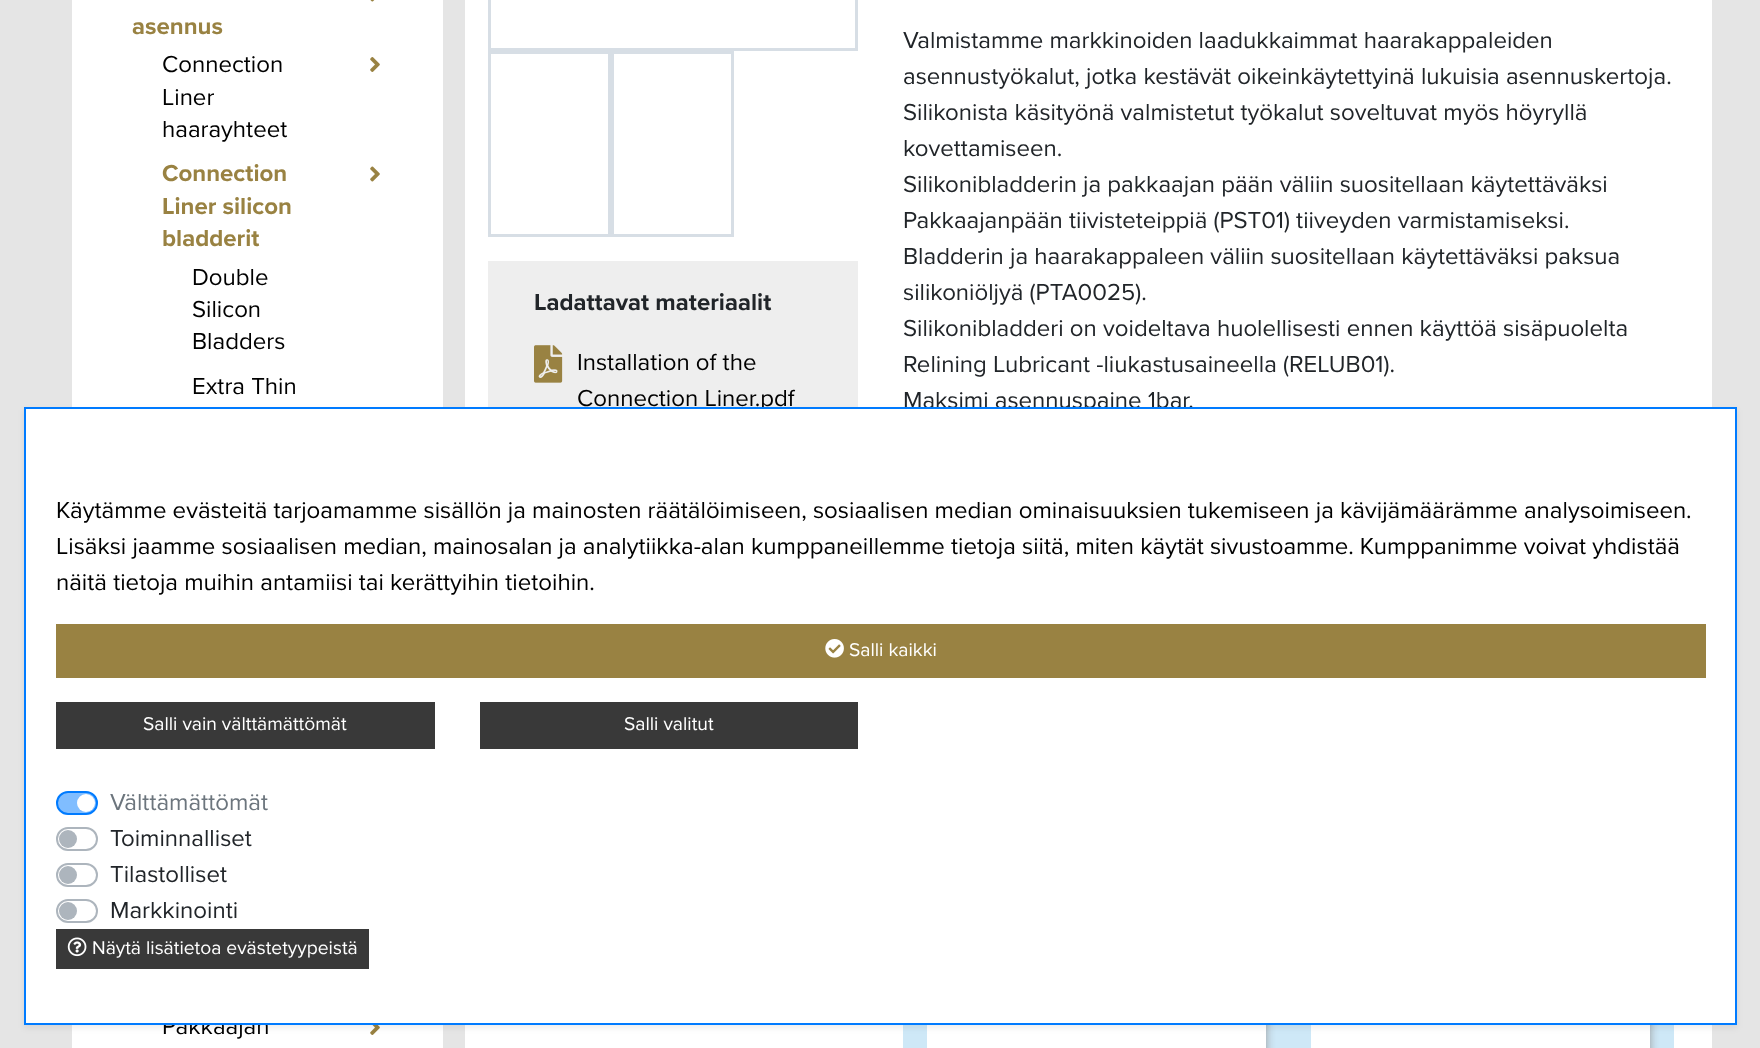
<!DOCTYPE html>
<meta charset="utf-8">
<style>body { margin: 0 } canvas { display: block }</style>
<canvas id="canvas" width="1760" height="1048"></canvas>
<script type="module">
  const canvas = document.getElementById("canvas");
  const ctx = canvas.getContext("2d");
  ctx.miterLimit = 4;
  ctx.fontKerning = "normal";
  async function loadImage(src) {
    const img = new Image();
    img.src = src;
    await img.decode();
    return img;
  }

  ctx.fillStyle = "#e5e5e5";
  ctx.fillRect(0, 0, 1760, 1048);
  ctx.fillStyle = "#ffffff";
  ctx.fillRect(72, 0, 371, 1048);
  ctx.drawImage(await loadImage("img1.png"), 370, 0, 5, 2);
  ctx.font = "bold 24px Proxima Nova";
  ctx.fillStyle = "#998242";
  ctx.fillText("asennus", 132, 34);
  ctx.font = "24px Proxima Nova";
  ctx.fillStyle = "#000000";
  ctx.fillText("Connection", 162, 72);
  ctx.fillText("Liner", 162, 105);
  ctx.fillText("haarayhteet", 162, 137);
  ctx.drawImage(await loadImage("img2.png"), 370, 57, 10, 15);
  ctx.font = "bold 24px Proxima Nova";
  ctx.fillStyle = "#998242";
  ctx.fillText("Connection", 162, 181);
  ctx.fillText("Liner silicon", 162, 214);
  ctx.fillText("bladderit", 162, 246);
  ctx.drawImage(await loadImage("img3.png"), 370, 166, 10, 16);
  ctx.font = "24px Proxima Nova";
  ctx.fillStyle = "#000000";
  ctx.fillText("Double", 192, 285);
  ctx.fillText("Silicon", 192, 317);
  ctx.fillText("Bladders", 192, 349);
  ctx.fillText("Extra Thin", 192, 394);
  ctx.fillText("Pakkaajan", 162, 1034);
  ctx.drawImage(await loadImage("img4.png"), 370, 1025, 10, 10);
  ctx.fillStyle = "#ffffff";
  ctx.fillRect(465, 0, 1247, 1048);
  ctx.strokeStyle = "#d7dee5";
  ctx.lineWidth = 3;
  ctx.strokeRect(489.5, -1.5, 367, 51);
  ctx.strokeRect(489.5, 52.5, 120, 183);
  ctx.strokeRect(612.5, 52.5, 120, 183);
  ctx.fillStyle = "#eeeeee";
  ctx.fillRect(488, 261, 370, 146);
  ctx.font = "bold 24px Proxima Nova";
  ctx.fillStyle = "#212529";
  ctx.fillText("Ladattavat materiaalit", 534, 310);
  ctx.drawImage(await loadImage("img5.png"), 534, 345, 29, 38);
  ctx.font = "24px Proxima Nova";
  ctx.fillStyle = "#000000";
  ctx.fillText("Installation of the", 577, 370);
  ctx.fillText("Connection Liner.pdf", 577, 406);
  ctx.fillStyle = "#212529";
  ctx.fillText("Valmistamme markkinoiden laadukkaimmat haarakappaleiden", 903, 48);
  ctx.fillText("asennustyökalut, jotka kestävät oikeinkäytettyinä lukuisia asennuskertoja.", 903, 84);
  ctx.fillText("Silikonista käsityönä valmistetut työkalut soveltuvat myös höyryllä", 903, 120);
  ctx.fillText("kovettamiseen.", 903, 156);
  ctx.fillText("Silikonibladderin ja pakkaajan pään väliin suositellaan käytettäväksi", 903, 192);
  ctx.fillText("Pakkaajanpään tiivisteteippiä (PST01) tiiveyden varmistamiseksi.", 903, 228);
  ctx.fillText("Bladderin ja haarakappaleen väliin suositellaan käytettäväksi paksua", 903, 264);
  ctx.fillText("silikoniöljyä (PTA0025).", 903, 300);
  ctx.fillText("Silikonibladderi on voideltava huolellisesti ennen käyttöä sisäpuolelta", 903, 336);
  ctx.fillText("Relining Lubricant -liukastusaineella (RELUB01).", 903, 372);
  ctx.fillText("Maksimi asennuspaine 1bar.", 903, 408);
  ctx.fillStyle = "#cee8f7";
  ctx.fillRect(903, 1025, 771, 23);
  ctx.fillStyle = "#999999";
  ctx.filter = "blur(5px)";
  ctx.beginPath();
  ctx.rect(948, 881, 318, 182);
  ctx.fill();
  ctx.filter = "none";
  ctx.fillStyle = "#ffffff";
  ctx.fillRect(927, 1025, 339, 23);
  ctx.fillStyle = "#999999";
  ctx.filter = "blur(5px)";
  ctx.beginPath();
  ctx.rect(1332, 881, 318, 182);
  ctx.fill();
  ctx.filter = "none";
  ctx.fillStyle = "#ffffff";
  ctx.fillRect(1311, 1025, 339, 23);
  ctx.fillStyle = "rgba(0, 0, 0, 0.07)";
  ctx.filter = "blur(3px)";
  ctx.beginPath();
  ctx.rect(24, 410, 1713, 618);
  ctx.fill();
  ctx.filter = "none";
  ctx.fillStyle = "#ffffff";
  ctx.beginPath();
  ctx.rect(25, 408, 1711, 616);
  ctx.fill();
  ctx.strokeStyle = "#007bff";
  ctx.lineWidth = 2;
  ctx.stroke();
  ctx.fillStyle = "#000000";
  ctx.fillText("Käytämme evästeitä tarjoamamme sisällön ja mainosten räätälöimiseen, sosiaalisen median ominaisuuksien tukemiseen ja kävijämäärämme analysoimiseen.", 56, 518);
  ctx.fillText("Lisäksi jaamme sosiaalisen median, mainosalan ja analytiikka-alan kumppaneillemme tietoja siitä, miten käytät sivustoamme. Kumppanimme voivat yhdistää", 56, 554);
  ctx.fillText("näitä tietoja muihin antamiisi tai kerättyihin tietoihin.", 56, 590);
  ctx.fillStyle = "#998242";
  ctx.fillRect(56, 624, 1650, 54);
  ctx.drawImage(await loadImage("img6.png"), 825, 639, 19, 19);
  ctx.font = "19.25px Proxima Nova";
  ctx.fillStyle = "#ffffff";
  ctx.fillText("Salli kaikki", 849, 656);
  ctx.fillStyle = "#393939";
  ctx.fillRect(56, 702, 379, 47);
  ctx.fillStyle = "#ffffff";
  ctx.fillText("Salli vain välttämättömät", 143, 730);
  ctx.fillStyle = "#393939";
  ctx.fillRect(480, 702, 378, 47);
  ctx.fillStyle = "#ffffff";
  ctx.fillText("Salli valitut", 624, 730);
  ctx.fillStyle = "#80bdff";
  ctx.beginPath();
  ctx.roundRect(57, 792, 40, 22, 11);
  ctx.fill();
  ctx.stroke();
  ctx.fillStyle = "#ffffff";
  ctx.beginPath();
  ctx.arc(86, 803, 9, 0, Math.PI * 2);
  ctx.fill();
  ctx.font = "24px Proxima Nova";
  ctx.fillStyle = "#6c757d";
  ctx.fillText("Välttämättömät", 110, 810);
  ctx.beginPath();
  ctx.roundRect(57, 828, 40, 22, 11);
  ctx.strokeStyle = "#adb5bd";
  ctx.stroke();
  ctx.fillStyle = "#adb5bd";
  ctx.beginPath();
  ctx.arc(68, 839, 9, 0, Math.PI * 2);
  ctx.fill();
  ctx.fillStyle = "#212529";
  ctx.fillText("Toiminnalliset", 110, 846);
  ctx.beginPath();
  ctx.roundRect(57, 864, 40, 22, 11);
  ctx.stroke();
  ctx.fillStyle = "#adb5bd";
  ctx.beginPath();
  ctx.arc(68, 875, 9, 0, Math.PI * 2);
  ctx.fill();
  ctx.fillStyle = "#212529";
  ctx.fillText("Tilastolliset", 110, 882);
  ctx.beginPath();
  ctx.roundRect(57, 900, 40, 22, 11);
  ctx.stroke();
  ctx.fillStyle = "#adb5bd";
  ctx.beginPath();
  ctx.arc(68, 911, 9, 0, Math.PI * 2);
  ctx.fill();
  ctx.fillStyle = "#212529";
  ctx.fillText("Markkinointi", 110, 918);
  ctx.fillStyle = "#393939";
  ctx.fillRect(56, 929, 313, 40);
  ctx.drawImage(await loadImage("img7.png"), 67, 937, 20, 20);
  ctx.font = "19.25px Proxima Nova";
  ctx.fillStyle = "#ffffff";
  ctx.fillText("Näytä lisätietoa evästetyypeistä", 92, 954);
</script>
